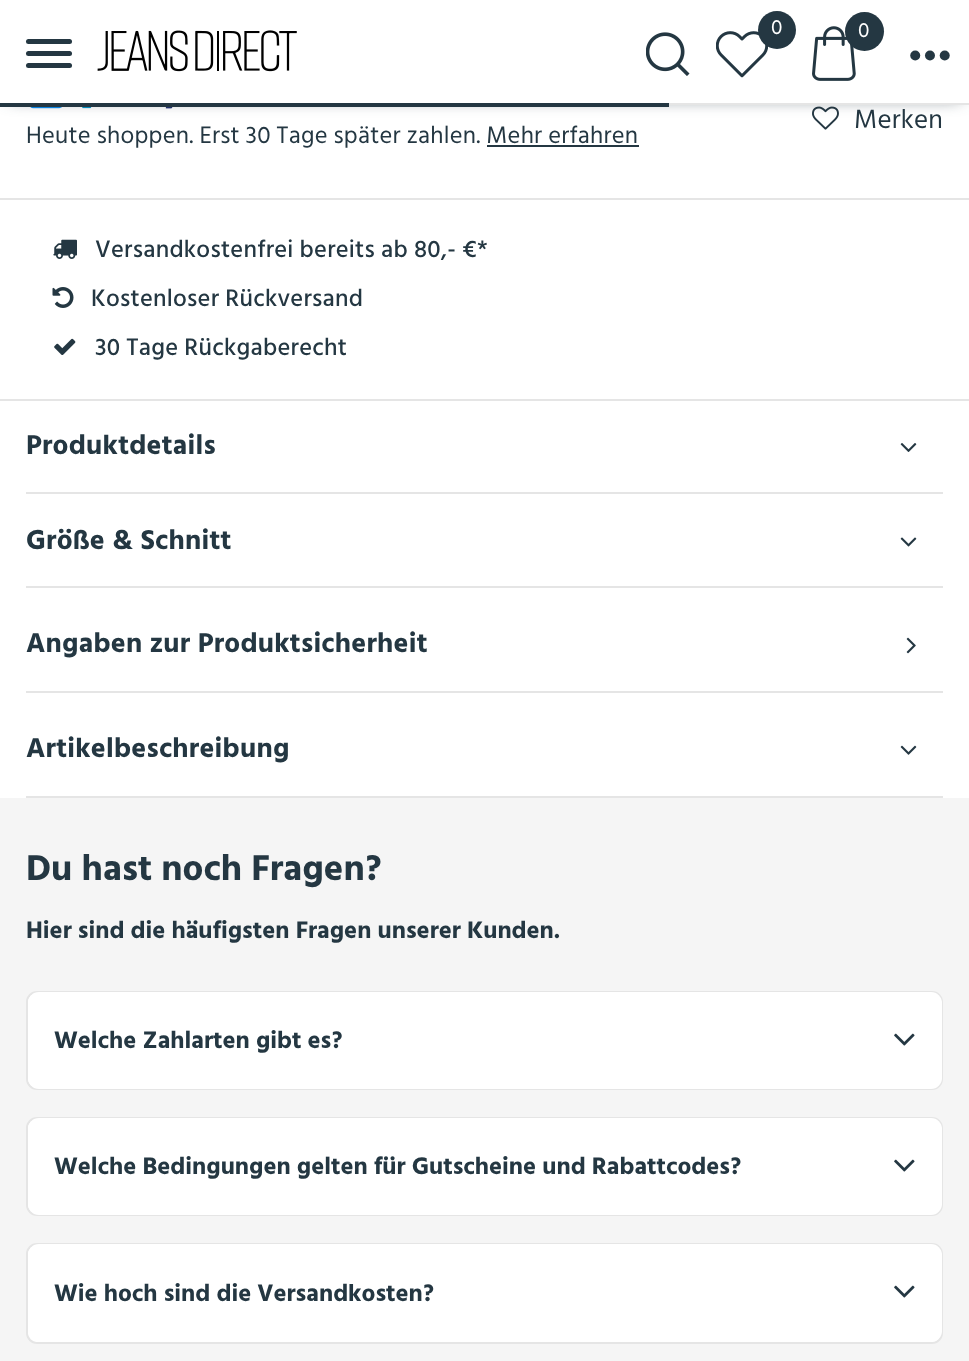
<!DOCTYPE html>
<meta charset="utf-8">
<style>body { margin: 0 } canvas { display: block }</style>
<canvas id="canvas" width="969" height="1361"></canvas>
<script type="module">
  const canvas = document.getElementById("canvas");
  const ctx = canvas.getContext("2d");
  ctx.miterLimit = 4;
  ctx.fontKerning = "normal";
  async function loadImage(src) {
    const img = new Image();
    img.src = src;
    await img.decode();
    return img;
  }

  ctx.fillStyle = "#ffffff";
  ctx.fillRect(0, 0, 969, 1361);
  ctx.drawImage(await loadImage("img5.png"), 812, 106, 27, 24);
  ctx.drawImage(await loadImage("img6.png"), 30, 107, 143, 2);
  ctx.fillStyle = "#243742";
  ctx.filter = "blur(9px)";
  ctx.beginPath();
  ctx.rect(9, 9, 952, 87);
  ctx.fill();
  ctx.filter = "none";
  ctx.fillStyle = "#ffffff";
  ctx.fillRect(0, 0, 969, 103);
  ctx.fillStyle = "#e5e5e5";
  ctx.fillRect(669, 103, 300, 2);
  ctx.fillStyle = "#243742";
  ctx.beginPath();
  ctx.roundRect(26, 51, 46, 5, 2.5);
  ctx.fill();
  ctx.beginPath();
  ctx.roundRect(26, 39, 46, 5, 2.5);
  ctx.fill();
  ctx.beginPath();
  ctx.roundRect(26, 63, 46, 5, 2.5);
  ctx.fill();
  ctx.drawImage(await loadImage("img1.png"), 97, 30, 200, 42);
  ctx.drawImage(await loadImage("img2.png"), 716, 31, 52, 47);
  ctx.beginPath();
  ctx.arc(777, 30, 19, 0, Math.PI * 2);
  ctx.fill();
  ctx.letterSpacing = "0.25px";
  ctx.font = "21px Hind Siliguri";
  ctx.fillStyle = "#ffffff";
  ctx.fillText("0", 771, 34);
  ctx.drawImage(await loadImage("img3.png"), 812, 26, 44, 55);
  ctx.fillStyle = "#243742";
  ctx.beginPath();
  ctx.arc(864.5, 31.5, 19.5, 0, Math.PI * 2);
  ctx.fill();
  ctx.fillStyle = "#ffffff";
  ctx.fillText("0", 858, 37);
  ctx.drawImage(await loadImage("img4.png"), 646, 32, 44, 44);
  ctx.font = "bold 56px Hind Siliguri";
  ctx.fillStyle = "#243742";
  ctx.fillText("...", 908, 60);
  ctx.fillRect(0, 103, 669, 4);
  ctx.font = "27px Hind Siliguri";
  ctx.fillText("Merken", 854, 128);
  ctx.font = "24.5px Hind Siliguri";
  ctx.fillText("Heute shoppen. Erst 30 Tage später zahlen. Mehr erfahren", 26, 143);
  ctx.fillRect(487, 145, 152, 2);
  ctx.fillStyle = "#e5e5e5";
  ctx.fillRect(0, 198, 969, 2);
  ctx.fillRect(0, 399, 969, 2);
  ctx.drawImage(await loadImage("img7.png"), 53, 239, 24, 20);
  ctx.font = "500 24.5px Hind Siliguri";
  ctx.fillStyle = "#243742";
  ctx.fillText("Versandkostenfrei bereits ab 80,- €*", 95, 257);
  ctx.drawImage(await loadImage("img8.png"), 52, 287, 22, 21);
  ctx.fillText("Kostenloser Rückversand", 91, 306);
  ctx.drawImage(await loadImage("img9.png"), 54, 338, 22, 17);
  ctx.fillText("30 Tage Rückgaberecht", 95, 355);
  ctx.fillStyle = "#e5e5e5";
  ctx.fillRect(26, 492, 917, 2);
  ctx.font = "bold 28px Hind Siliguri";
  ctx.fillStyle = "#243742";
  ctx.fillText("Produktdetails", 26, 454);
  ctx.drawImage(await loadImage("img10.png"), 900, 443, 17, 9);
  ctx.fillStyle = "#e5e5e5";
  ctx.fillRect(26, 586, 917, 2);
  ctx.fillStyle = "#243742";
  ctx.fillText("Größe & Schnitt", 26, 549);
  ctx.drawImage(await loadImage("img11.png"), 900, 537, 17, 10);
  ctx.fillStyle = "#e5e5e5";
  ctx.fillRect(26, 691, 917, 2);
  ctx.fillStyle = "#243742";
  ctx.fillText("Angaben zur Produktsicherheit", 26, 652);
  ctx.drawImage(await loadImage("img12.png"), 906, 637, 10, 17);
  ctx.fillStyle = "#e5e5e5";
  ctx.fillRect(26, 796, 917, 2);
  ctx.fillStyle = "#243742";
  ctx.fillText("Artikelbeschreibung", 26, 757);
  ctx.drawImage(await loadImage("img13.png"), 900, 745, 17, 10);
  ctx.fillStyle = "#f5f5f5";
  ctx.fillRect(0, 798, 969, 563);
  ctx.letterSpacing = "0px";
  ctx.font = "bold 36.75px Hind Siliguri";
  ctx.fillStyle = "#243742";
  ctx.fillText("Du hast noch Fragen?", 26, 880);
  ctx.font = "bold 24.5px Hind Siliguri";
  ctx.fillText("Hier sind die häufigsten Fragen unserer Kunden.", 26, 938);
  ctx.fillStyle = "#ffffff";
  ctx.beginPath();
  ctx.roundRect(27, 992, 915, 97, 10);
  ctx.fill();
  ctx.strokeStyle = "#e5e5e5";
  ctx.lineWidth = 2;
  ctx.stroke();
  ctx.beginPath();
  ctx.roundRect(28, 992, 914, 97, 11);
  ctx.fill();
  ctx.fillStyle = "#243742";
  ctx.fillText("Welche Zahlarten gibt es?", 54, 1048);
  ctx.drawImage(await loadImage("img14.png"), 894, 1033, 21, 13);
  ctx.fillStyle = "#ffffff";
  ctx.beginPath();
  ctx.roundRect(27, 1118, 915, 97, 10);
  ctx.fill();
  ctx.stroke();
  ctx.beginPath();
  ctx.roundRect(28, 1118, 914, 97, 11);
  ctx.fill();
  ctx.fillStyle = "#243742";
  ctx.fillText("Welche Bedingungen gelten für Gutscheine und Rabattcodes?", 54, 1174);
  ctx.drawImage(await loadImage("img14.png"), 894, 1159, 21, 13);
  ctx.fillStyle = "#ffffff";
  ctx.beginPath();
  ctx.roundRect(27, 1244, 915, 99, 10);
  ctx.fill();
  ctx.stroke();
  ctx.beginPath();
  ctx.roundRect(28, 1244, 914, 98, 11);
  ctx.fill();
  ctx.fillStyle = "#243742";
  ctx.fillText("Wie hoch sind die Versandkosten?", 54, 1301);
  ctx.drawImage(await loadImage("img14.png"), 894, 1285, 21, 13);
</script>
